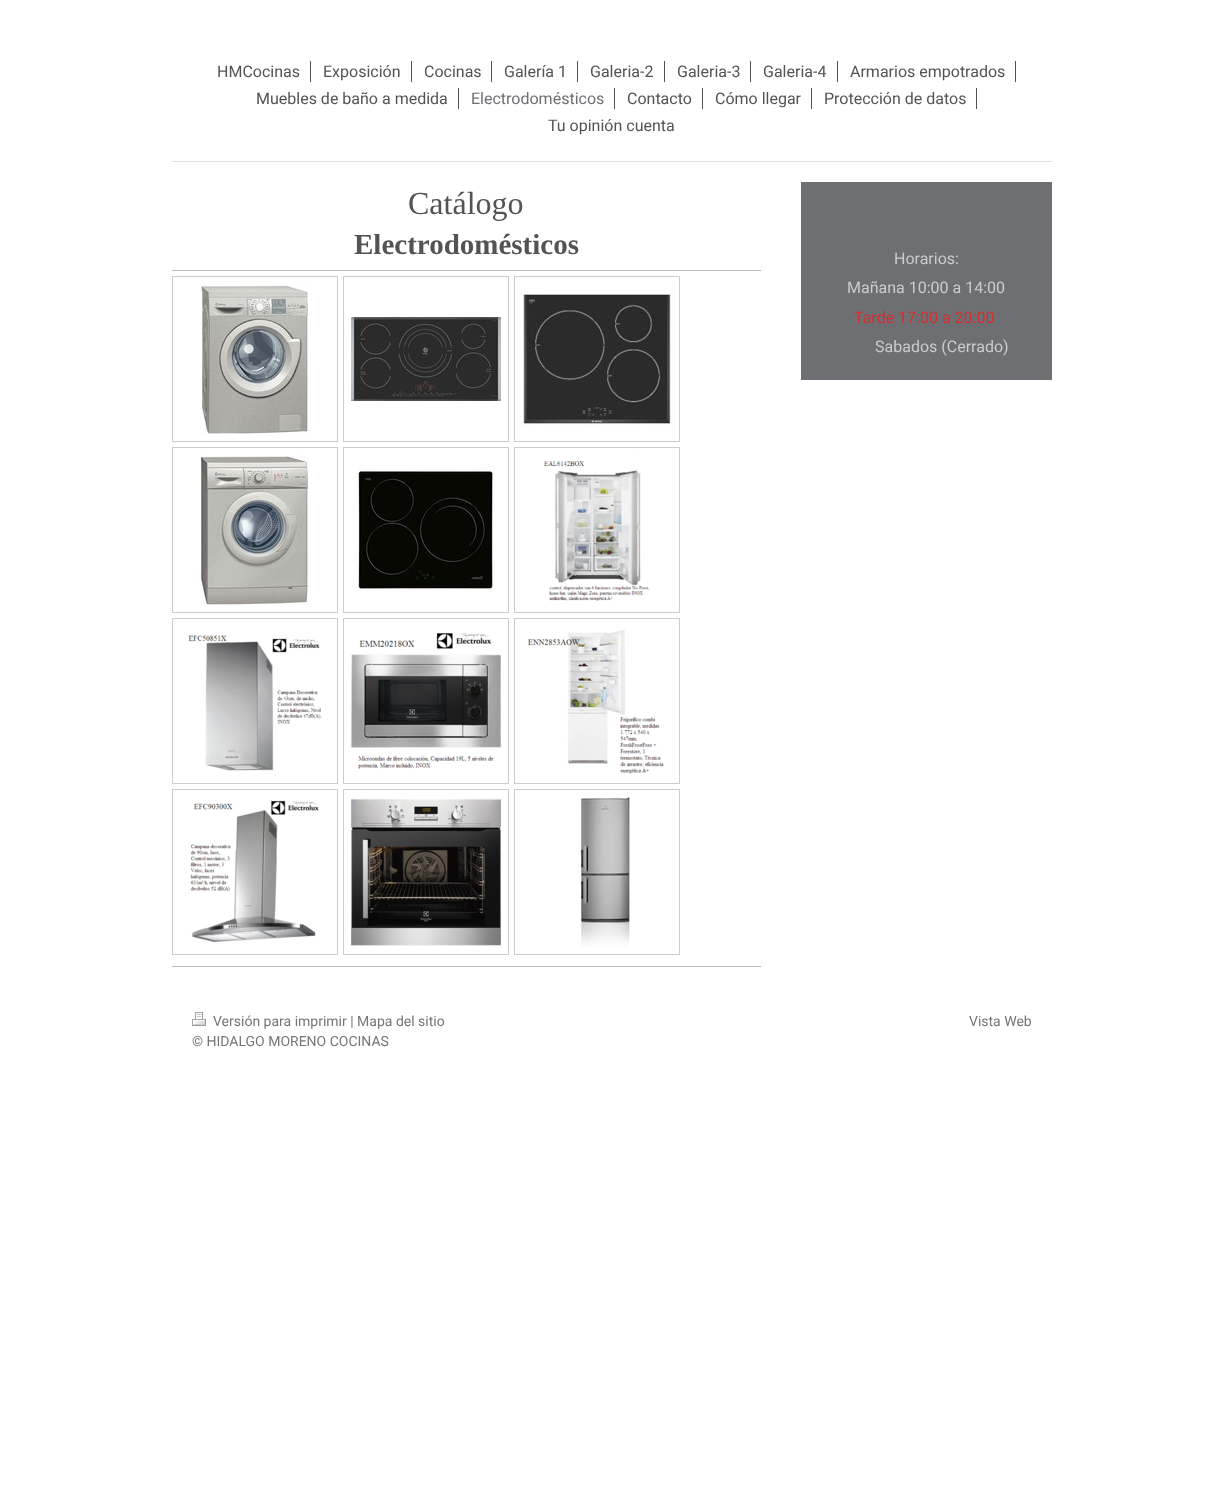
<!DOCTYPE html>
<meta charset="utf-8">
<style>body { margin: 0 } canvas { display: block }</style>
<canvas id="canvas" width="1223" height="1512"></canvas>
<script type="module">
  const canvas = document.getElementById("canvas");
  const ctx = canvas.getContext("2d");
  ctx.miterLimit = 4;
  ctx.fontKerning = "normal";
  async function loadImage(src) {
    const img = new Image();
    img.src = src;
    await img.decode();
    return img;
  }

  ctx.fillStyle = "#ffffff";
  ctx.fillRect(0, 0, 1223, 1512);
  ctx.fillStyle = "#dddddd";
  ctx.fillRect(172, 161, 880, 1);
  ctx.fillStyle = "#535353";
  ctx.fillRect(310, 61, 1, 21);
  ctx.font = "16px Roboto";
  ctx.fillText("HMCocinas", 217, 77);
  ctx.fillRect(411, 61, 1, 21);
  ctx.fillText("Exposición", 323, 77);
  ctx.fillRect(491, 61, 1, 21);
  ctx.fillText("Cocinas", 424, 77);
  ctx.fillRect(577, 61, 1, 21);
  ctx.fillText("Galería 1", 504, 77);
  ctx.fillRect(664, 61, 1, 21);
  ctx.fillText("Galeria-2", 590, 77);
  ctx.fillRect(750, 61, 1, 21);
  ctx.fillText("Galeria-3", 677, 77);
  ctx.fillRect(837, 61, 1, 21);
  ctx.fillText("Galeria-4", 763, 77);
  ctx.fillRect(1015, 61, 1, 21);
  ctx.fillText("Armarios empotrados", 850, 77);
  ctx.fillRect(458, 88, 1, 21);
  ctx.fillText("Muebles de baño a medida", 256, 104);
  ctx.fillRect(614, 88, 1, 21);
  ctx.fillStyle = "#6e6f73";
  ctx.fillText("Electrodomésticos", 471, 104);
  ctx.fillStyle = "#535353";
  ctx.fillRect(702, 88, 1, 21);
  ctx.fillText("Contacto", 627, 104);
  ctx.fillRect(811, 88, 1, 21);
  ctx.fillText("Cómo llegar", 715, 104);
  ctx.fillRect(976, 88, 1, 21);
  ctx.fillText("Protección de datos", 824, 104);
  ctx.fillText("Tu opinión cuenta", 548, 131);
  ctx.font = "32px Liberation Serif";
  ctx.fillText("Catálogo", 408, 214);
  ctx.font = "bold 29px Liberation Serif";
  ctx.fillText("Electrodomésticos", 354, 254);
  ctx.fillStyle = "#bababa";
  ctx.fillRect(172, 270, 589, 1);
  ctx.strokeStyle = "#cccccc";
  ctx.strokeRect(172.5, 276.5, 165, 165);
  ctx.drawImage(await loadImage("img1.png"), 200, 284, 109, 150);
  ctx.strokeRect(343.5, 276.5, 165, 165);
  ctx.drawImage(await loadImage("img2.png"), 351, 317, 150, 84);
  ctx.strokeRect(514.5, 276.5, 165, 165);
  ctx.drawImage(await loadImage("img3.png"), 522, 294, 150, 134);
  ctx.strokeRect(172.5, 447.5, 165, 165);
  ctx.drawImage(await loadImage("img4.png"), 200, 455, 109, 150);
  ctx.strokeRect(343.5, 447.5, 165, 165);
  ctx.drawImage(await loadImage("img5.png"), 355, 465, 140, 127);
  ctx.strokeRect(514.5, 447.5, 165, 165);
  ctx.drawImage(await loadImage("img6.png"), 544, 455, 106, 146);
  ctx.strokeRect(172.5, 618.5, 165, 165);
  ctx.drawImage(await loadImage("img7.png"), 188, 635, 134, 136);
  ctx.strokeRect(343.5, 618.5, 165, 165);
  ctx.drawImage(await loadImage("img8.png"), 351, 633, 150, 136);
  ctx.strokeRect(514.5, 618.5, 165, 165);
  ctx.drawImage(await loadImage("img9.png"), 527, 629, 137, 145);
  ctx.strokeRect(172.5, 789.5, 165, 165);
  ctx.drawImage(await loadImage("img10.png"), 190, 800, 129, 143);
  ctx.strokeRect(343.5, 789.5, 165, 165);
  ctx.drawImage(await loadImage("img11.png"), 351, 798, 150, 148);
  ctx.strokeRect(514.5, 789.5, 165, 165);
  ctx.drawImage(await loadImage("img12.png"), 578, 797, 53, 150);
  ctx.fillRect(172, 966, 589, 1);
  ctx.fillStyle = "#6e6f73";
  ctx.fillRect(801, 182, 251, 198);
  ctx.font = "16px Roboto";
  ctx.fillStyle = "#cbcccd";
  ctx.fillText("Horarios:", 894, 264);
  ctx.fillText("Mañana 10:00 a 14:00", 847, 293);
  ctx.fillStyle = "#d32f2f";
  ctx.fillText("Tarde 17:00 a 20:00", 854, 323);
  ctx.fillStyle = "#cbcccd";
  ctx.fillText("Sabados (Cerrado)", 875, 352);
  ctx.drawImage(await loadImage("img13.png"), 192, 1012, 14, 14);
  ctx.font = "14px Roboto";
  ctx.fillStyle = "#757575";
  ctx.fillText("Versión para imprimir | Mapa del sitio", 213, 1026);
  ctx.fillText("© HIDALGO MORENO COCINAS", 192, 1046);
  ctx.fillText("Vista Web", 969, 1026);
</script>
